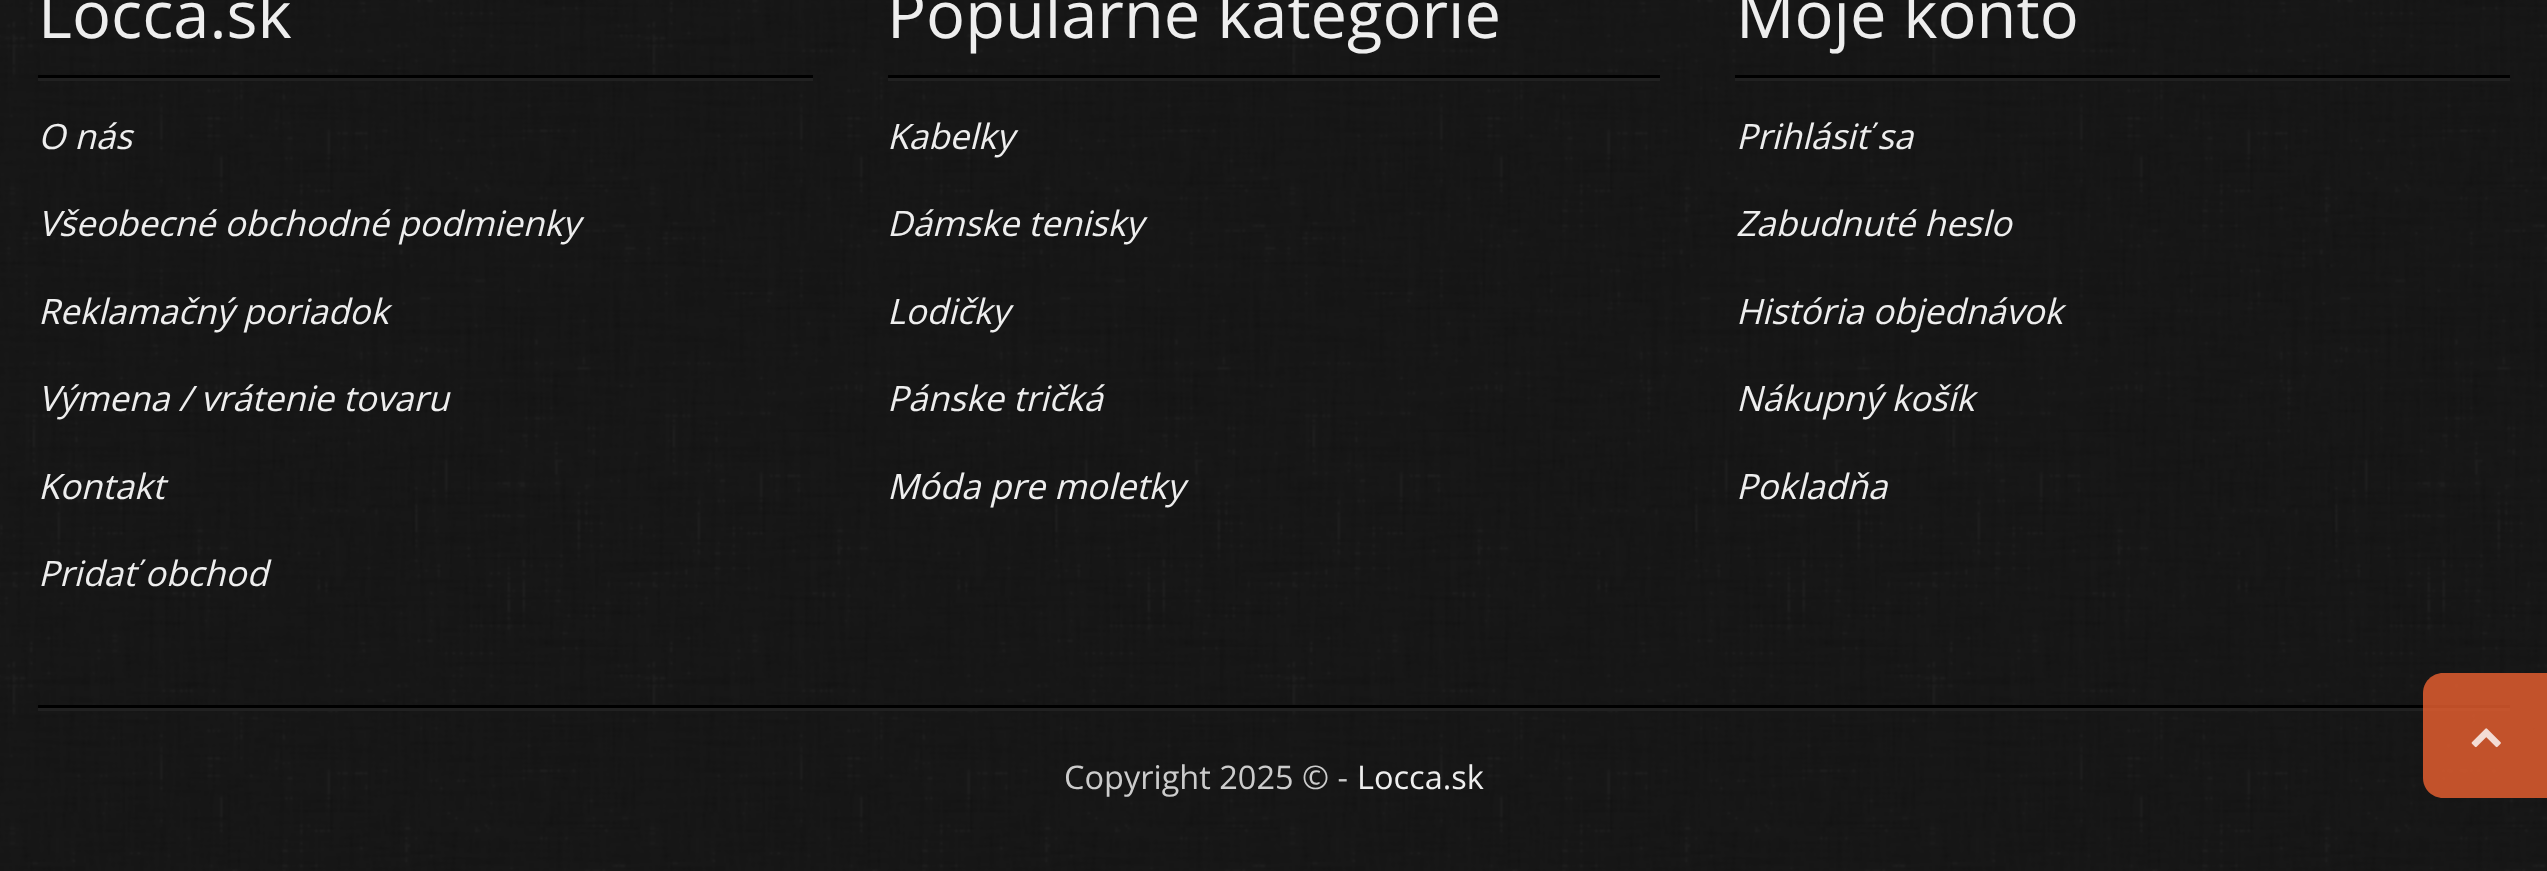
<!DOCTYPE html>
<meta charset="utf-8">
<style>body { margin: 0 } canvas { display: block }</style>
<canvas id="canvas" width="2547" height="871"></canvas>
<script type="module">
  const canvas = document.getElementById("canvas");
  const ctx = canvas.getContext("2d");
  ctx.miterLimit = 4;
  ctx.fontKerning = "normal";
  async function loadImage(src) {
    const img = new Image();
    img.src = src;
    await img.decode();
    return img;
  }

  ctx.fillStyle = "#ffffff";
  ctx.fillRect(0, 0, 2547, 871);
  ctx.drawImage(await loadImage("img1.png"), 0, 0, 2547, 871);
  ctx.font = "65px Open Sans";
  ctx.fillStyle = "#eeeeee";
  ctx.fillText("Locca.sk", 38, 38);
  ctx.fillStyle = "#000000";
  ctx.fillRect(38, 75, 775, 3);
  ctx.fillStyle = "#212121";
  ctx.fillRect(38, 78, 775, 3);
  ctx.font = "italic 35px Open Sans";
  ctx.fillStyle = "#eeeeee";
  ctx.fillText("O nás", 38, 149);
  ctx.fillText("Všeobecné obchodné podmienky", 38, 236);
  ctx.fillText("Reklamačný poriadok", 38, 324);
  ctx.fillText("Výmena / vrátenie tovaru", 38, 411);
  ctx.fillText("Kontakt", 38, 499);
  ctx.fillText("Pridať obchod", 38, 586);
  ctx.font = "65px Open Sans";
  ctx.fillText("Populárne kategórie", 887, 38);
  ctx.fillStyle = "#000000";
  ctx.fillRect(888, 75, 772, 3);
  ctx.fillStyle = "#212121";
  ctx.fillRect(888, 78, 772, 3);
  ctx.font = "italic 35px Open Sans";
  ctx.fillStyle = "#eeeeee";
  ctx.fillText("Kabelky", 887, 149);
  ctx.fillText("Dámske tenisky", 887, 236);
  ctx.fillText("Lodičky", 887, 324);
  ctx.fillText("Pánske tričká", 887, 411);
  ctx.fillText("Móda pre moletky", 887, 499);
  ctx.font = "65px Open Sans";
  ctx.fillText("Moje konto", 1736, 38);
  ctx.fillStyle = "#000000";
  ctx.fillRect(1735, 75, 775, 3);
  ctx.fillStyle = "#212121";
  ctx.fillRect(1735, 78, 775, 3);
  ctx.font = "italic 35px Open Sans";
  ctx.fillStyle = "#eeeeee";
  ctx.fillText("Prihlásiť sa", 1736, 149);
  ctx.fillText("Zabudnuté heslo", 1736, 236);
  ctx.fillText("História objednávok", 1736, 324);
  ctx.fillText("Nákupný košík", 1736, 411);
  ctx.fillText("Pokladňa", 1736, 499);
  ctx.fillStyle = "#000000";
  ctx.fillRect(38, 705, 2472, 3);
  ctx.fillStyle = "#212121";
  ctx.fillRect(38, 708, 2472, 3);
  ctx.font = "32.5px Open Sans";
  ctx.fillStyle = "#cccccc";
  ctx.fillText("Copyright 2025 © -", 1064, 789);
  ctx.fillStyle = "#eeeeee";
  ctx.fillText("Locca.sk", 1357, 789);
  ctx.fillStyle = "rgba(238, 97, 49, 0.8)";
  ctx.beginPath();
  ctx.moveTo(2443, 673);
  ctx.lineTo(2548, 673);
  ctx.lineTo(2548, 798);
  ctx.lineTo(2443, 798);
  ctx.bezierCurveTo(2432, 798, 2423, 789, 2423, 778);
  ctx.lineTo(2423, 693);
  ctx.bezierCurveTo(2423, 682, 2432, 673, 2443, 673);
  ctx.closePath();
  ctx.fill();
  ctx.drawImage(await loadImage("img2.png"), 2471, 728, 30, 20);
</script>
